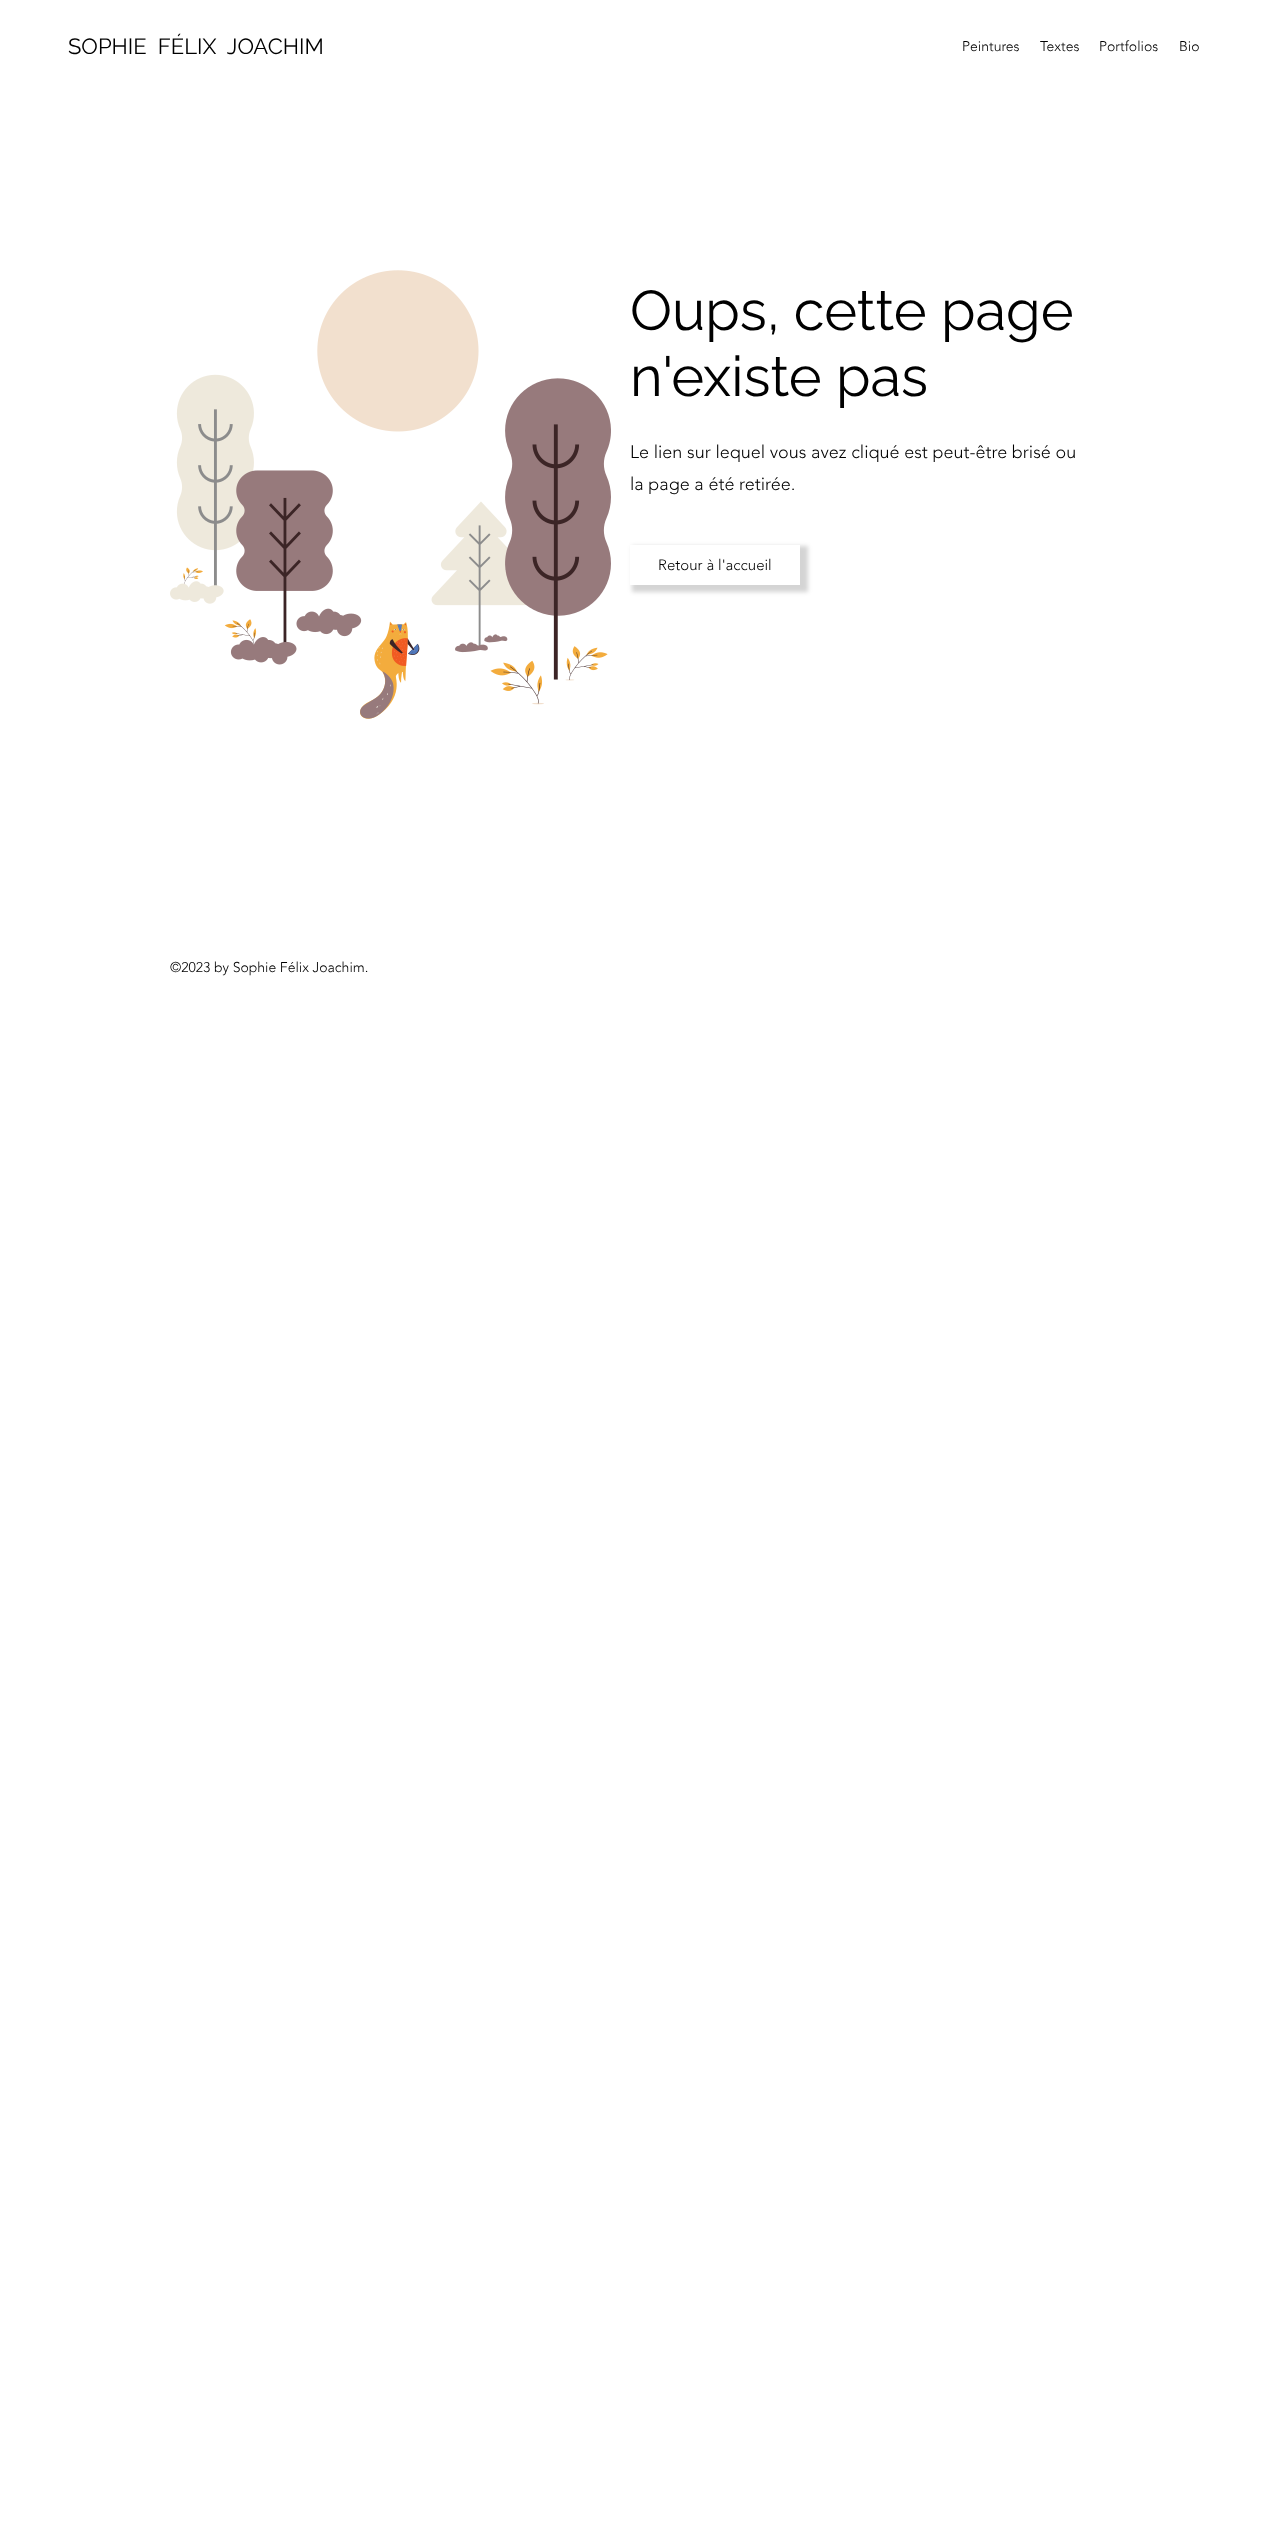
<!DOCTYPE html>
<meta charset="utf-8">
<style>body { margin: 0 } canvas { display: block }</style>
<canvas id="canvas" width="1279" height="2523"></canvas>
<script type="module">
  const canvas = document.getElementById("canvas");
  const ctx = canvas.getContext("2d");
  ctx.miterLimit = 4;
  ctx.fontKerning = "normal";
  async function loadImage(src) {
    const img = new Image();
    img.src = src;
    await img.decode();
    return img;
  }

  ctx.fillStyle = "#ffffff";
  ctx.fillRect(0, 0, 1279, 2523);
  ctx.font = "22px Raleway";
  ctx.fillStyle = "#000000";
  ctx.fillText("SOPHIE  FÉLIX  JOACHIM", 68, 54);
  ctx.font = "300 14px 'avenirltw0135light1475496'";
  ctx.fillText("Peintures", 962, 51);
  ctx.fillText("Textes", 1040, 51);
  ctx.fillText("Portfolios", 1099, 51);
  ctx.fillText("Bio", 1179, 51);
  ctx.drawImage(await loadImage("img1.png"), 170, 270, 441, 449);
  ctx.font = "56px Raleway";
  ctx.fillText("Oups, cette page", 630, 330);
  ctx.fillText("n'existe pas", 630, 396);
  ctx.font = "300 18px 'avenirltw0135light1475496'";
  ctx.fillText("Le lien sur lequel vous avez cliqué est peut-être brisé ou", 630, 458);
  ctx.fillText("la page a été retirée.", 630, 490);
  ctx.save();
  ctx.beginPath();
  ctx.moveTo(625, 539);
  ctx.lineTo(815, 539);
  ctx.lineTo(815, 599);
  ctx.lineTo(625, 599);
  ctx.closePath();
  ctx.moveTo(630, 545);
  ctx.lineTo(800, 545);
  ctx.lineTo(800, 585);
  ctx.lineTo(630, 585);
  ctx.closePath();
  ctx.clip("evenodd");
  ctx.fillStyle = "rgba(0, 0, 0, 0.17)";
  ctx.filter = "blur(2px)";
  ctx.beginPath();
  ctx.rect(632, 546, 176, 46);
  ctx.fill();
  ctx.filter = "none";
  ctx.restore();
  ctx.font = "300 15px 'avenirltw0135light1475496'";
  ctx.fillText("Retour à l'accueil", 658, 570);
  ctx.font = "300 14px 'avenirltw0135light1475496'";
  ctx.fillText("©2023 by Sophie Félix Joachim.", 170, 972);
</script>
